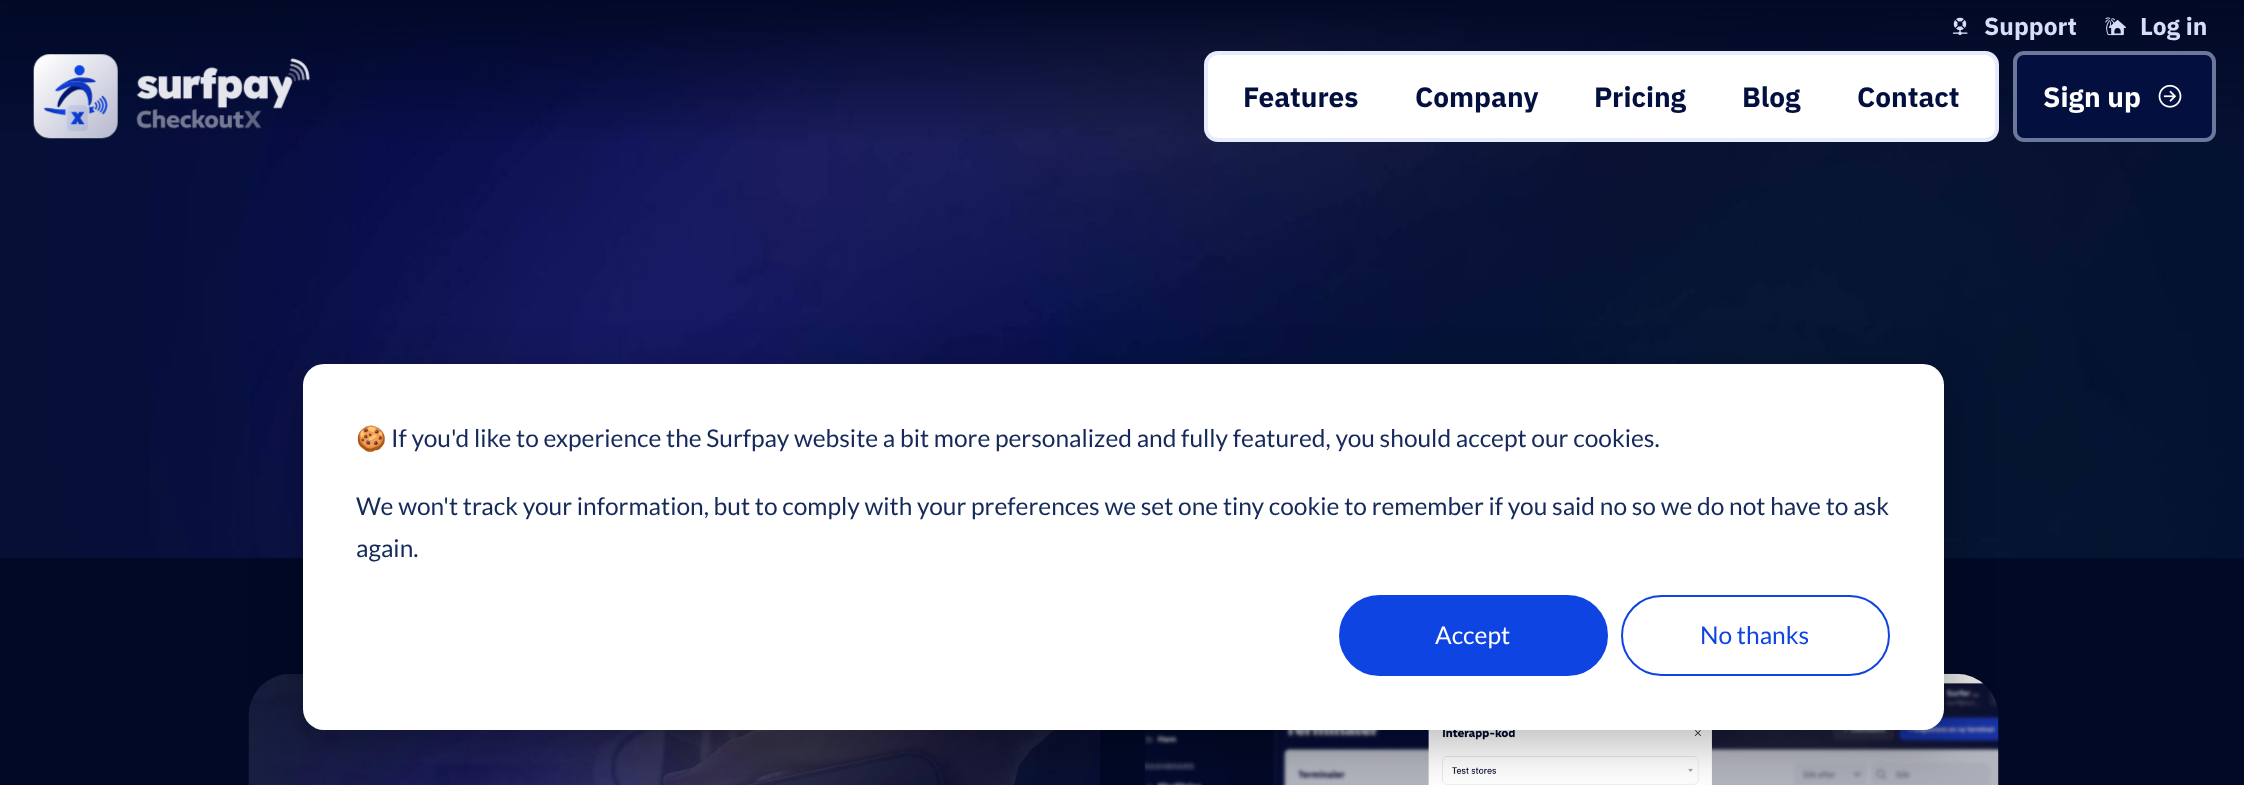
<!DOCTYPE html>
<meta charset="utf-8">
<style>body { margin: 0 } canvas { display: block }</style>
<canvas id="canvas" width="2244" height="785"></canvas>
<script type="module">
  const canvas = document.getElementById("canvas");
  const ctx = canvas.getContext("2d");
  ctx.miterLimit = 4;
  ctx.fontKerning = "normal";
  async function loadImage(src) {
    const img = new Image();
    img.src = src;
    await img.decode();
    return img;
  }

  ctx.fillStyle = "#010927";
  ctx.fillRect(0, 0, 2244, 785);
  ctx.drawImage(await loadImage("img1.png"), 0, 0, 2244, 559);
  ctx.drawImage(await loadImage("img2.png"), 248, 674, 853, 111);
  ctx.drawImage(await loadImage("img3.png"), 1144, 673, 855, 112);
  ctx.drawImage(await loadImage("img4.png"), 1952, 17, 16, 19);
  ctx.font = "bold 24.5px IBM Plex Sans";
  ctx.fillStyle = "#d5dff7";
  ctx.fillText("Support", 1984, 35);
  ctx.drawImage(await loadImage("img5.png"), 2105, 17, 21, 19);
  ctx.fillText("Log in", 2140, 35);
  ctx.drawImage(await loadImage("img6.png"), 33, 54, 277, 85);
  ctx.fillStyle = "#ffffff";
  ctx.beginPath();
  ctx.roundRect(1204, 51, 795, 91, 14);
  ctx.fill();
  ctx.beginPath();
  ctx.roundRect(1206, 53, 791, 87, 12);
  ctx.strokeStyle = "rgba(14, 68, 225, 0.1)";
  ctx.lineWidth = 4;
  ctx.stroke();
  ctx.font = "bold 28px IBM Plex Sans";
  ctx.fillStyle = "#03103f";
  ctx.fillText("Features", 1243, 107);
  ctx.fillText("Company", 1415, 107);
  ctx.fillText("Pricing", 1594, 107);
  ctx.fillText("Blog", 1742, 107);
  ctx.fillText("Contact", 1857, 107);
  ctx.beginPath();
  ctx.roundRect(2013, 51, 203, 91, 11);
  ctx.fill();
  ctx.beginPath();
  ctx.roundRect(2015, 53, 199, 87, 9);
  ctx.strokeStyle = "rgba(213, 223, 247, 0.5)";
  ctx.stroke();
  ctx.fillStyle = "#ffffff";
  ctx.fillText("Sign up", 2043, 107);
  ctx.drawImage(await loadImage("img7.png"), 2158, 84, 24, 24);
  ctx.fillStyle = "rgba(0, 0, 0, 0.28)";
  ctx.filter = "blur(24.5px)";
  ctx.beginPath();
  ctx.roundRect(303, 378, 1641, 366, 21);
  ctx.fill();
  ctx.filter = "none";
  ctx.fillStyle = "#ffffff";
  ctx.beginPath();
  ctx.roundRect(303, 364, 1641, 366, 21);
  ctx.fill();
  ctx.font = "24.5px Noto Color Emoji";
  ctx.fillStyle = "#15295a";
  ctx.fillText("🍪", 356, 447);
  ctx.font = "24.5px Lato";
  ctx.fillText("If you'd like to experience the Surfpay website a bit more personalized and fully featured, you should accept our cookies.", 391, 447);
  ctx.fillText("We won't track your information, but to comply with your preferences we set one tiny cookie to remember if you said no so we do not have to ask", 356, 515);
  ctx.fillText("again.", 356, 557);
  ctx.fillStyle = "#0e44e1";
  ctx.beginPath();
  ctx.roundRect(1340, 596, 267, 79, 39.5);
  ctx.fill();
  ctx.strokeStyle = "#0e44e1";
  ctx.lineWidth = 2;
  ctx.stroke();
  ctx.fillStyle = "#ffffff";
  ctx.fillText("Accept", 1435, 644);
  ctx.beginPath();
  ctx.roundRect(1622, 596, 267, 79, 39.5);
  ctx.stroke();
  ctx.fillStyle = "#0e44e1";
  ctx.fillText("No thanks", 1700, 644);
</script>
